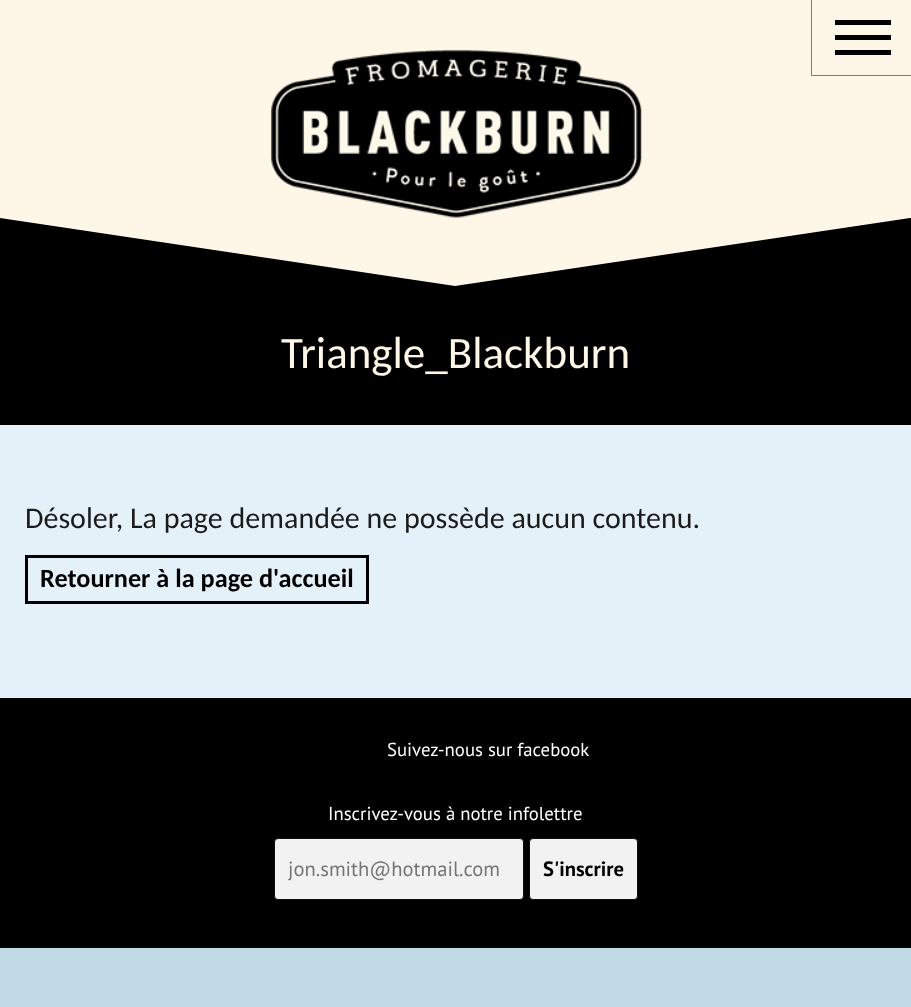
<!DOCTYPE html>
<meta charset="utf-8">
<style>body { margin: 0 } canvas { display: block }</style>
<canvas id="canvas" width="911" height="1007"></canvas>
<script type="module">
  const canvas = document.getElementById("canvas");
  const ctx = canvas.getContext("2d");
  ctx.miterLimit = 4;
  ctx.fontKerning = "normal";
  async function loadImage(src) {
    const img = new Image();
    img.src = src;
    await img.decode();
    return img;
  }

  ctx.fillStyle = "#e5f1f8";
  ctx.fillRect(0, 0, 911, 1007);
  ctx.fillStyle = "#fef7e8";
  ctx.fillRect(0, 0, 911, 218);
  ctx.drawImage(await loadImage("img1.png"), 271, 50, 371, 168);
  ctx.fillStyle = "#000000";
  ctx.fillRect(0, 218, 911, 207);
  ctx.fillStyle = "#fef7e8";
  ctx.beginPath();
  ctx.moveTo(0, 218);
  ctx.lineTo(910, 218);
  ctx.lineTo(455, 286);
  ctx.closePath();
  ctx.fill();
  ctx.fillStyle = "#7f7c74";
  ctx.beginPath();
  ctx.moveTo(911, 76);
  ctx.lineTo(811, 76);
  ctx.lineTo(812, 75);
  ctx.lineTo(911, 75);
  ctx.closePath();
  ctx.fill();
  ctx.fillStyle = "rgba(0, 0, 0, 0.5)";
  ctx.beginPath();
  ctx.moveTo(811, 76);
  ctx.lineTo(811, 0);
  ctx.lineTo(812, 0);
  ctx.lineTo(812, 75);
  ctx.closePath();
  ctx.fill();
  ctx.fillStyle = "#000000";
  ctx.fillRect(835, 20, 56, 5);
  ctx.fillRect(835, 35, 56, 5);
  ctx.fillRect(835, 50, 56, 5);
  ctx.font = "45px Carlito";
  ctx.fillStyle = "#fef7e8";
  ctx.fillText("Triangle_Blackburn", 281, 368);
  ctx.font = "30px Carlito";
  ctx.fillStyle = "#1b1b1b";
  ctx.fillText("Désoler, La page demandée ne possède aucun contenu.", 25, 528);
  ctx.strokeStyle = "#000000";
  ctx.lineWidth = 3;
  ctx.strokeRect(26.5, 556.5, 341, 46);
  ctx.font = "bold 26.25px Carlito";
  ctx.fillStyle = "#000000";
  ctx.fillText("Retourner à la page d'accueil", 40, 587);
  ctx.fillRect(0, 698, 911, 250);
  ctx.font = "18.75px PT Sans";
  ctx.fillStyle = "#ffffff";
  ctx.fillText("Suivez-nous sur facebook", 387, 756);
  ctx.fillText("Inscrivez-vous à notre infolettre", 328, 820);
  ctx.fillStyle = "#f2f2f3";
  ctx.beginPath();
  ctx.roundRect(274.5, 838.5, 249, 61, 3.5);
  ctx.fill();
  ctx.strokeStyle = "#0f0f10";
  ctx.lineWidth = 1;
  ctx.stroke();
  ctx.font = "20.6px PT Sans";
  ctx.fillStyle = "#757575";
  ctx.fillText("jon.smith@hotmail.com", 288, 876);
  ctx.fillStyle = "#f2f2f3";
  ctx.beginPath();
  ctx.roundRect(529.5, 838.5, 108, 61, 3.5);
  ctx.fill();
  ctx.stroke();
  ctx.font = "bold 20.6px PT Sans";
  ctx.fillStyle = "#000000";
  ctx.fillText("S'inscrire", 543, 876);
  ctx.fillStyle = "#c0dbe6";
  ctx.fillRect(0, 948, 911, 59);
</script>
